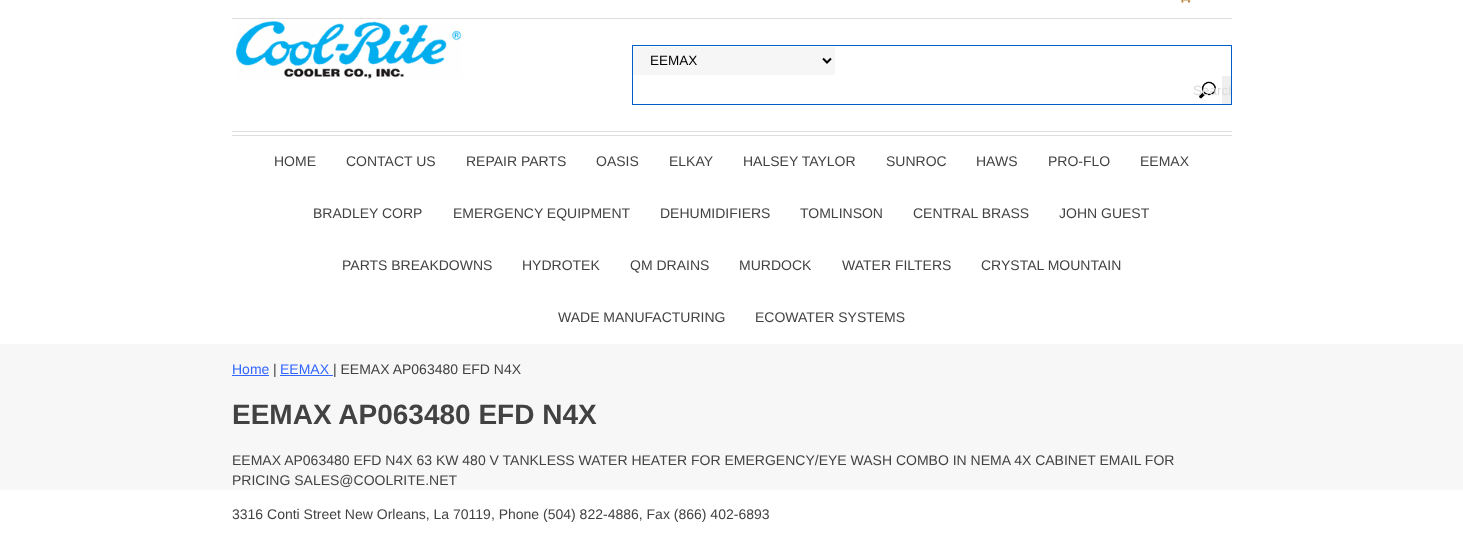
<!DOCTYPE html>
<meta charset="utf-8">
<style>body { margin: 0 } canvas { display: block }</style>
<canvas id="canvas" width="1463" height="560"></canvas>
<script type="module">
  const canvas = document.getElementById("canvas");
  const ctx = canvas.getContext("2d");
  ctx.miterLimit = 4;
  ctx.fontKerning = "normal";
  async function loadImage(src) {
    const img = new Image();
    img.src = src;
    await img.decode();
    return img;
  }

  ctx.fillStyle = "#ffffff";
  ctx.fillRect(0, 0, 1463, 560);
  ctx.drawImage(await loadImage("img1.png"), 1181, 0, 10, 4);
  ctx.fillStyle = "#dedede";
  ctx.fillRect(232, 18, 1000, 1);
  ctx.fillRect(232, 131, 1000, 1);
  ctx.drawImage(await loadImage("img2.png"), 236, 21, 226, 58);
  ctx.strokeStyle = "#005fc9";
  ctx.strokeRect(632.5, 45.5, 599, 59);
  ctx.fillStyle = "#f6f6f6";
  ctx.fillRect(633, 47, 202, 28);
  ctx.beginPath();
  ctx.moveTo(823, 58.5);
  ctx.lineTo(827, 62.5);
  ctx.lineTo(831, 58.5);
  ctx.strokeStyle = "#000000";
  ctx.lineWidth = 2;
  ctx.stroke();
  ctx.font = "13.5px Liberation Sans";
  ctx.fillStyle = "#000000";
  ctx.fillText("EEMAX", 650, 65);
  ctx.fillStyle = "#efefef";
  ctx.fillRect(1222, 76, 9, 28);
  ctx.drawImage(await loadImage("img3.png"), 1193, 76, 29, 28);
  ctx.save();
  ctx.beginPath();
  ctx.rect(1193, 76, 38, 28);
  ctx.clip();
  ctx.fillStyle = "#dbdbdb";
  ctx.fillText("Search", 1193, 95);
  ctx.restore();
  ctx.fillStyle = "#dedede";
  ctx.fillRect(232, 135, 1000, 1);
  ctx.font = "14px Liberation Sans";
  ctx.fillStyle = "#424242";
  ctx.fillText("HOME", 274, 166);
  ctx.fillText("CONTACT US", 346, 166);
  ctx.fillText("REPAIR PARTS", 466, 166);
  ctx.fillText("OASIS", 596, 166);
  ctx.fillText("ELKAY", 669, 166);
  ctx.fillText("HALSEY TAYLOR", 743, 166);
  ctx.fillText("SUNROC", 886, 166);
  ctx.fillText("HAWS", 976, 166);
  ctx.fillText("PRO-FLO", 1048, 166);
  ctx.fillText("EEMAX", 1140, 166);
  ctx.fillText("BRADLEY CORP", 313, 218);
  ctx.fillText("EMERGENCY EQUIPMENT", 453, 218);
  ctx.fillText("DEHUMIDIFIERS", 660, 218);
  ctx.fillText("TOMLINSON", 800, 218);
  ctx.fillText("CENTRAL BRASS", 913, 218);
  ctx.fillText("JOHN GUEST", 1059, 218);
  ctx.fillText("PARTS BREAKDOWNS", 342, 270);
  ctx.fillText("HYDROTEK", 522, 270);
  ctx.fillText("QM DRAINS", 630, 270);
  ctx.fillText("MURDOCK", 739, 270);
  ctx.fillText("WATER FILTERS", 842, 270);
  ctx.fillText("CRYSTAL MOUNTAIN", 981, 270);
  ctx.fillText("WADE MANUFACTURING", 558, 322);
  ctx.fillText("ECOWATER SYSTEMS", 755, 322);
  ctx.fillStyle = "#f7f7f7";
  ctx.fillRect(0, 344, 1463, 146);
  ctx.fillStyle = "#3366ff";
  ctx.fillText("Home", 232, 374);
  ctx.fillRect(232, 375, 37, 1);
  ctx.fillStyle = "#424242";
  ctx.fillText("|", 273, 374);
  ctx.fillStyle = "#3366ff";
  ctx.fillText("EEMAX", 280, 374);
  ctx.fillRect(280, 375, 53, 1);
  ctx.fillStyle = "#424242";
  ctx.fillText("| EEMAX AP063480 EFD N4X", 333, 374);
  ctx.font = "bold 28px Liberation Sans";
  ctx.fillText("EEMAX AP063480 EFD N4X", 232, 424);
  ctx.font = "14px Liberation Sans";
  ctx.fillText("EEMAX AP063480 EFD N4X 63 KW 480 V TANKLESS WATER HEATER FOR EMERGENCY/EYE WASH COMBO IN NEMA 4X CABINET EMAIL FOR", 232, 465);
  ctx.fillText("PRICING SALES@COOLRITE.NET", 232, 485);
  ctx.fillText("3316 Conti Street New Orleans, La 70119, Phone (504) 822-4886, Fax (866) 402-6893", 232, 519);
</script>
